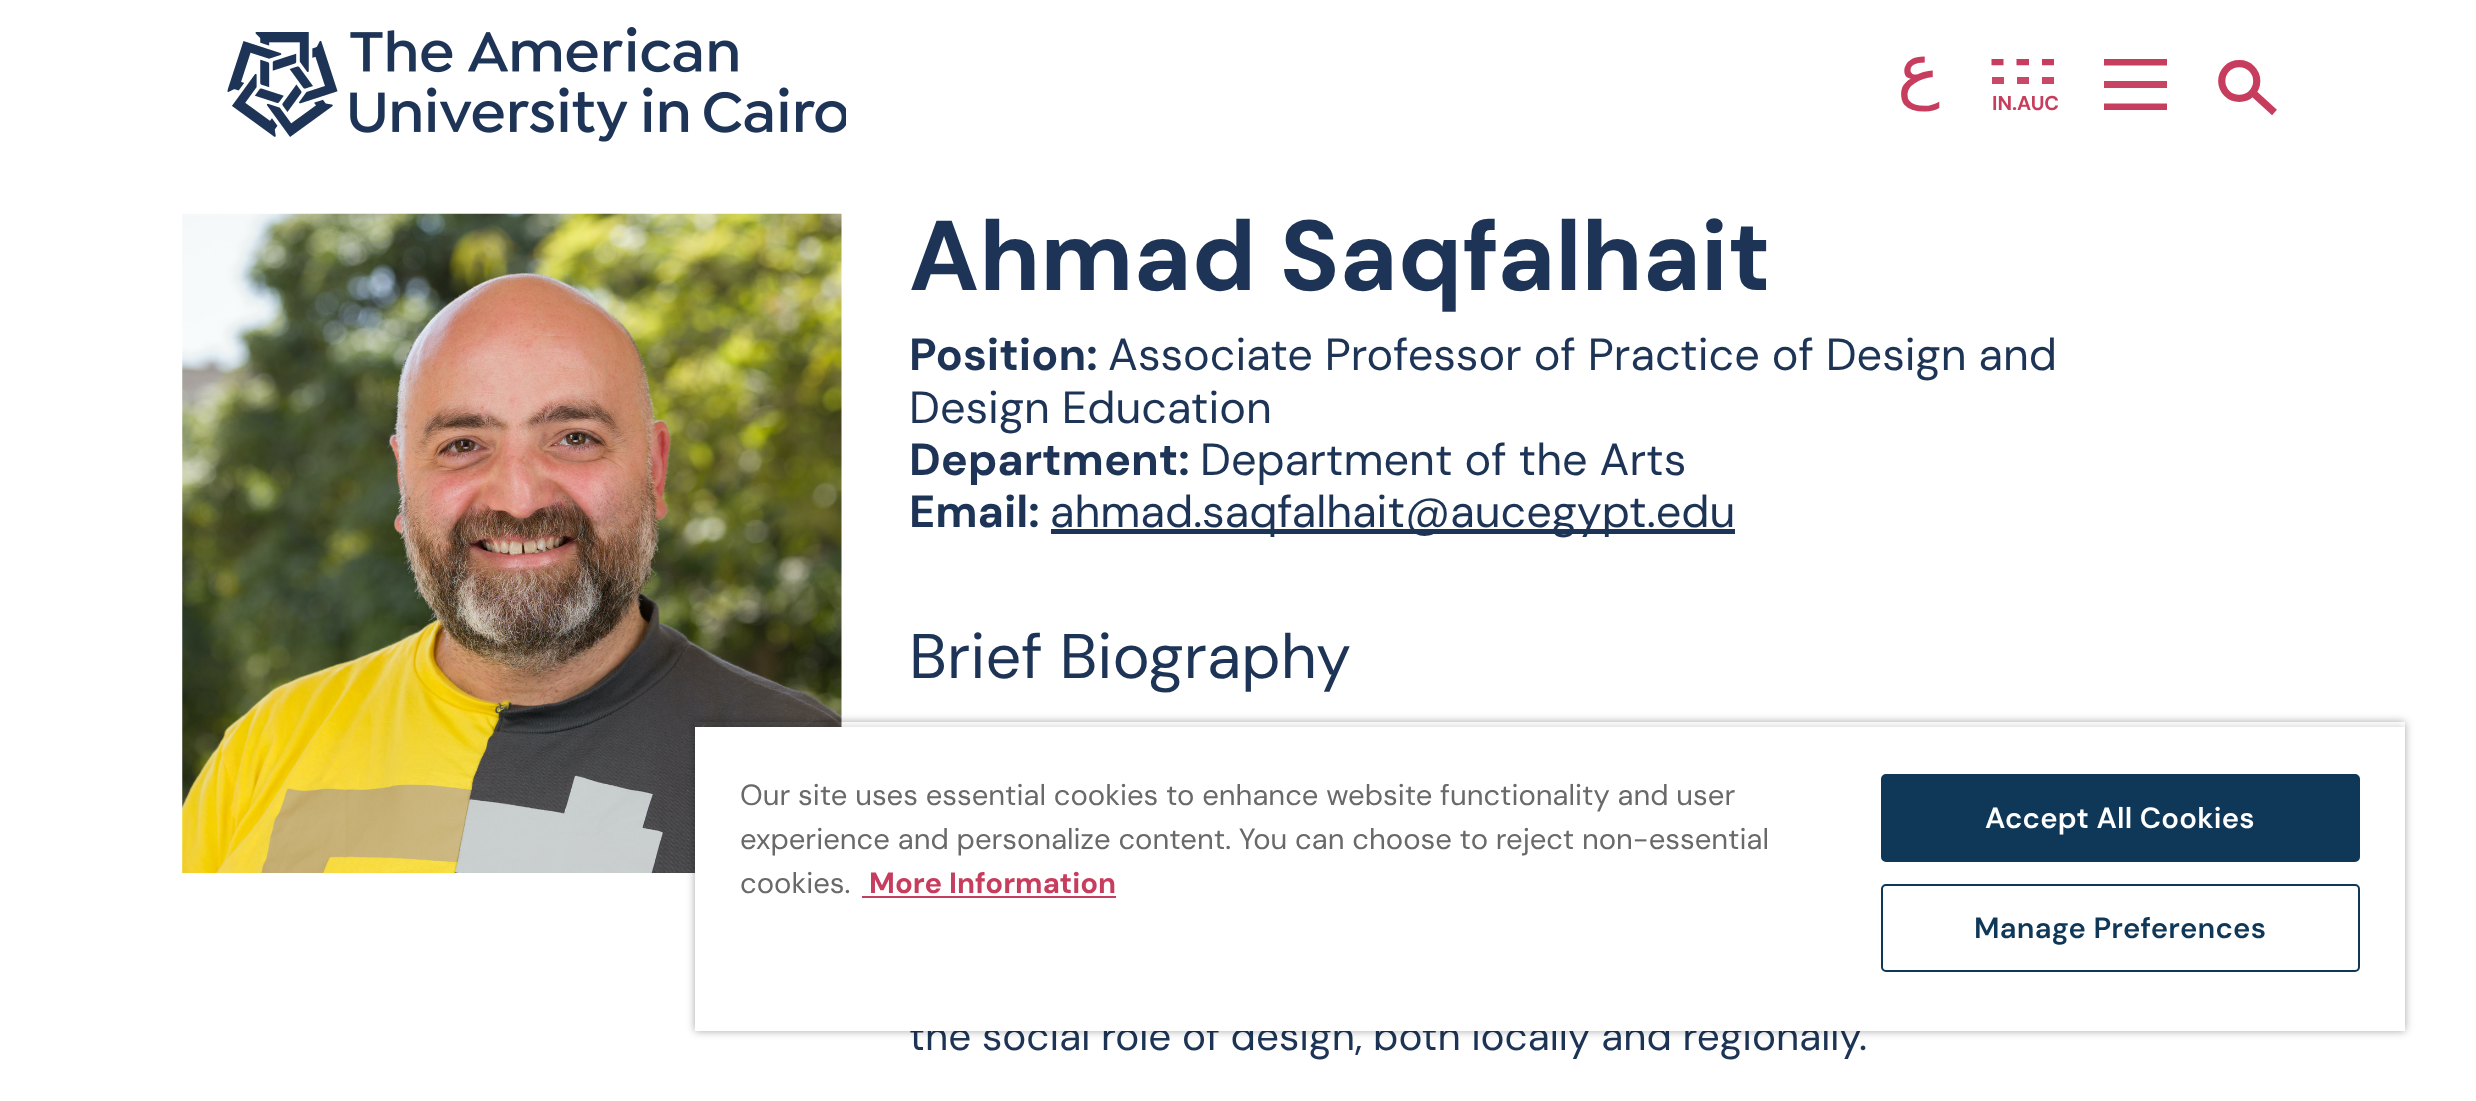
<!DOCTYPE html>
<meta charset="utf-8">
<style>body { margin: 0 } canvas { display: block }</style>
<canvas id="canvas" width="2476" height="1101"></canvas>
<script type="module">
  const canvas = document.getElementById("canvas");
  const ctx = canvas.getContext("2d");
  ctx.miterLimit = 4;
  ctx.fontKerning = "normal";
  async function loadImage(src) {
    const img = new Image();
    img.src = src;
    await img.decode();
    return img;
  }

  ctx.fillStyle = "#ffffff";
  ctx.fillRect(0, 0, 2476, 1101);
  ctx.drawImage(await loadImage("img1.png"), 227, 27, 619, 115);
  ctx.direction = "rtl";
  ctx.font = "72px DejaVu Sans";
  ctx.fillStyle = "#c73d5e";
  ctx.fillText("ع", 1940, 94);
  ctx.save();
  ctx.beginPath();
  ctx.rect(1991, 59, 63, 27);
  ctx.clip();
  ctx.beginPath();
  ctx.moveTo(1991.5, 62);
  ctx.lineTo(2003.5, 62);
  ctx.moveTo(2016.5, 62);
  ctx.lineTo(2029, 62);
  ctx.moveTo(2042, 62);
  ctx.lineTo(2054, 62);
  ctx.strokeStyle = "#c73d5e";
  ctx.lineWidth = 6.6;
  ctx.stroke();
  ctx.restore();
  ctx.fillStyle = "#ca4867";
  ctx.fillRect(1992, 77, 12, 7);
  ctx.fillRect(2017, 77, 12, 7);
  ctx.fillRect(2042, 77, 12, 7);
  ctx.direction = "ltr";
  ctx.font = "bold 20px DM Sans";
  ctx.fillStyle = "#c73d5e";
  ctx.fillText("IN.AUC", 1992, 110);
  ctx.save();
  ctx.beginPath();
  ctx.rect(2104, 59, 63, 51);
  ctx.clip();
  ctx.beginPath();
  ctx.moveTo(2104, 62);
  ctx.lineTo(2167, 62);
  ctx.strokeStyle = "#c73d5e";
  ctx.lineWidth = 6.8;
  ctx.stroke();
  ctx.restore();
  ctx.fillStyle = "#c94363";
  ctx.fillRect(2104, 81, 63, 7);
  ctx.save();
  ctx.beginPath();
  ctx.rect(2104, 59, 63, 51);
  ctx.clip();
  ctx.beginPath();
  ctx.moveTo(2104, 107);
  ctx.lineTo(2167, 107);
  ctx.strokeStyle = "#c73d5e";
  ctx.lineWidth = 6.8;
  ctx.stroke();
  ctx.restore();
  ctx.beginPath();
  ctx.moveTo(2251.5, 68.5);
  ctx.bezierCurveTo(2258.5, 75.5, 2258.5, 86.5, 2251.5, 93.5);
  ctx.bezierCurveTo(2245, 100, 2233.5, 100, 2227, 93.5);
  ctx.bezierCurveTo(2220, 86.5, 2220, 75.5, 2227, 68.5);
  ctx.bezierCurveTo(2233.5, 62, 2245, 62, 2251.5, 68.5);
  ctx.closePath();
  ctx.moveTo(2251.5, 91.5);
  ctx.lineTo(2274.5, 112.5);
  ctx.strokeStyle = "#c73d5e";
  ctx.lineWidth = 7.2;
  ctx.stroke();
  ctx.drawImage(await loadImage("img2.png"), 182, 213, 660, 660);
  ctx.font = "bold 99px DM Sans";
  ctx.fillStyle = "#1d3456";
  ctx.fillText("Ahmad Saqfalhait", 909, 290);
  ctx.font = "bold 45px DM Sans";
  ctx.fillText("Position:", 909, 370);
  ctx.font = "45px DM Sans";
  ctx.fillText("Associate Professor of Practice of Design and", 1108, 370);
  ctx.fillText("Design Education", 909, 423);
  ctx.font = "bold 45px DM Sans";
  ctx.fillText("Department:", 909, 475);
  ctx.font = "45px DM Sans";
  ctx.fillText("Department of the Arts", 1200, 475);
  ctx.font = "bold 45px DM Sans";
  ctx.fillText("Email:", 909, 527);
  ctx.fillRect(1051, 529, 684, 5);
  ctx.font = "45px DM Sans";
  ctx.fillText("ahmad.saqfalhait@aucegypt.edu", 1050, 527);
  ctx.font = "63px DM Sans";
  ctx.fillText("Brief Biography", 909, 678);
  ctx.font = "40.5px DM Sans";
  ctx.fillText("the social role of design, both locally and regionally.", 909, 1050);
  ctx.save();
  ctx.beginPath();
  ctx.moveTo(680, 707);
  ctx.lineTo(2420, 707);
  ctx.lineTo(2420, 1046);
  ctx.lineTo(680, 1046);
  ctx.closePath();
  ctx.moveTo(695, 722);
  ctx.lineTo(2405, 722);
  ctx.lineTo(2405, 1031);
  ctx.lineTo(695, 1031);
  ctx.closePath();
  ctx.clip("evenodd");
  ctx.fillStyle = "rgba(0, 0, 0, 0.35)";
  ctx.filter = "blur(4.5px)";
  ctx.beginPath();
  ctx.rect(695, 722, 1710, 309);
  ctx.fill();
  ctx.filter = "none";
  ctx.restore();
  ctx.save();
  ctx.beginPath();
  ctx.rect(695, 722, 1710, 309);
  ctx.clip();
  ctx.fillStyle = "rgba(0, 0, 0, 0.2)";
  ctx.filter = "blur(4.5px)";
  ctx.beginPath();
  ctx.rect(695, 727, 1710, 304);
  ctx.fill();
  ctx.filter = "none";
  ctx.restore();
  ctx.fillStyle = "#ffffff";
  ctx.fillRect(695, 727, 1710, 304);
  ctx.font = "29.25px DM Sans";
  ctx.fillStyle = "#696969";
  ctx.fillText("Our site uses essential cookies to enhance website functionality and user", 740, 805);
  ctx.fillText("experience and personalize content. You can choose to reject non-essential", 740, 849);
  ctx.fillText("cookies.", 740, 893);
  ctx.font = "bold 29.25px DM Sans";
  ctx.fillStyle = "#c73d5e";
  ctx.fillText("More Information", 869, 893);
  ctx.fillRect(862, 896, 254, 2);
  ctx.fillStyle = "#0f3858";
  ctx.beginPath();
  ctx.roundRect(1882, 775, 477, 86, 4);
  ctx.fill();
  ctx.strokeStyle = "#0f3858";
  ctx.lineWidth = 2;
  ctx.stroke();
  ctx.letterSpacing = "0.25px";
  ctx.font = "600 29.25px DM Sans";
  ctx.fillStyle = "#ffffff";
  ctx.fillText("Accept All Cookies", 1985, 828);
  ctx.beginPath();
  ctx.roundRect(1882, 885, 477, 86, 4);
  ctx.stroke();
  ctx.fillStyle = "#0f3858";
  ctx.fillText("Manage Preferences", 1974, 938);
</script>
